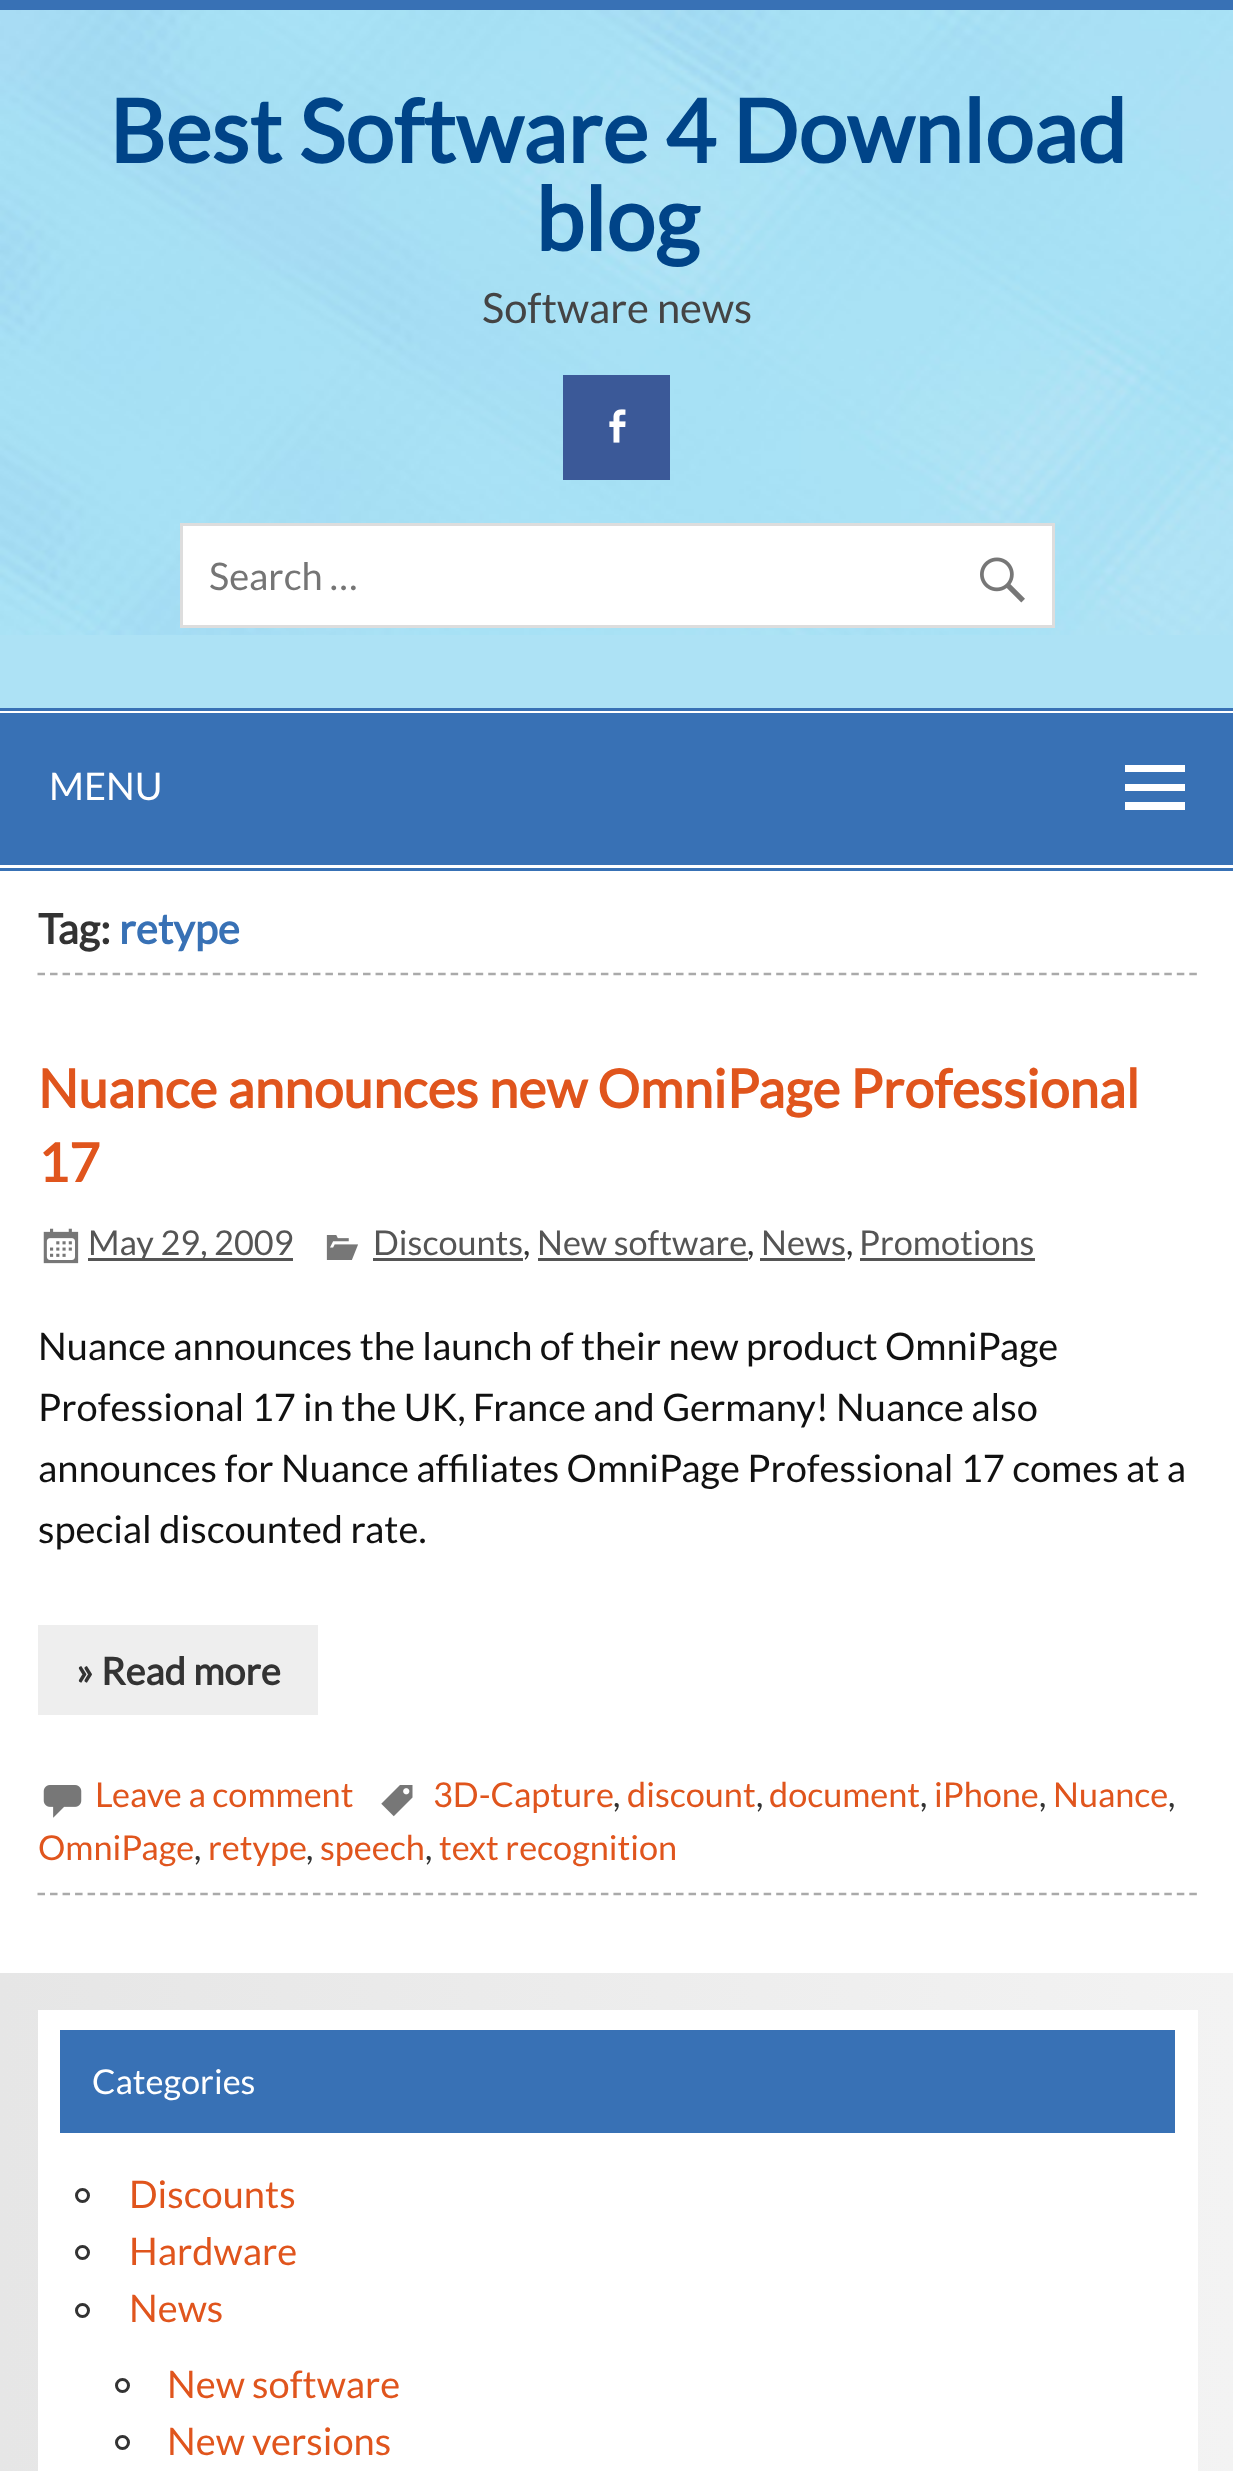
<!DOCTYPE html>
<meta charset="utf-8">
<style>body { margin: 0 } canvas { display: block }</style>
<canvas id="canvas" width="1233" height="2471"></canvas>
<script type="module">
  const canvas = document.getElementById("canvas");
  const ctx = canvas.getContext("2d");
  ctx.miterLimit = 4;
  ctx.fontKerning = "normal";
  async function loadImage(src) {
    const img = new Image();
    img.src = src;
    await img.decode();
    return img;
  }
  let gradient;

  ctx.fillStyle = "#ffffff";
  ctx.fillRect(0, 0, 1233, 2471);
  ctx.fillStyle = "#3871b5";
  ctx.fillRect(0, 0, 1233, 10);
  ctx.fillStyle = "#ade2f5";
  ctx.fillRect(0, 635, 1233, 73);
  ctx.drawImage(await loadImage("img1.png"), 0, 10, 1233, 625);
  ctx.font = "bold 87.4px Lato";
  ctx.fillStyle = "#004488";
  ctx.fillText("Best Software 4 Download", 109, 163);
  ctx.fillText("blog", 535, 251);
  ctx.font = "41.75px Lato";
  ctx.fillStyle = "#444444";
  ctx.fillText("Software news", 482, 323);
  ctx.fillStyle = "#3b5998";
  ctx.fillRect(563, 375, 107, 105);
  ctx.drawImage(await loadImage("img2.png"), 609, 409, 17, 34);
  ctx.fillStyle = "#ffffff";
  ctx.beginPath();
  ctx.rect(181.5, 524.5, 872, 102);
  ctx.fill();
  ctx.strokeStyle = "#dddddd";
  ctx.lineWidth = 3;
  ctx.stroke();
  ctx.font = "38px Lato";
  ctx.fillStyle = "#757575";
  ctx.fillText("Search …", 209, 590);
  ctx.drawImage(await loadImage("img3.png"), 980, 557, 45, 46);
  ctx.fillStyle = "#3871b5";
  ctx.fillRect(0, 708, 1233, 3);
  ctx.fillRect(0, 868, 1233, 3);
  ctx.fillRect(0, 713, 1233, 152);
  ctx.fillStyle = "#ffffff";
  ctx.fillText("MENU", 49, 800);
  ctx.beginPath();
  ctx.moveTo(1125, 810);
  ctx.lineTo(1125, 802);
  ctx.lineTo(1185, 802);
  ctx.lineTo(1185, 810);
  ctx.closePath();
  ctx.moveTo(1125, 765);
  ctx.lineTo(1185, 765);
  ctx.lineTo(1185, 772);
  ctx.lineTo(1125, 772);
  ctx.closePath();
  ctx.moveTo(1125, 791);
  ctx.lineTo(1125, 784);
  ctx.lineTo(1185, 784);
  ctx.lineTo(1185, 791);
  ctx.closePath();
  ctx.fill();
  ctx.beginPath();
  ctx.moveTo(37.5, 974);
  ctx.lineTo(1197.5, 974);
  ctx.strokeStyle = "#aaaaaa";
  ctx.lineWidth = 2.5;
  ctx.setLineDash([7.5, 5.02]);
  ctx.stroke();
  ctx.font = "bold 41.75px Lato";
  ctx.fillStyle = "#333333";
  ctx.fillText("Tag:", 38, 944);
  ctx.fillStyle = "#3871b5";
  ctx.fillText("retype", 119, 944);
  ctx.beginPath();
  ctx.moveTo(37.5, 1894);
  ctx.lineTo(1197.5, 1894);
  ctx.stroke();
  ctx.font = "bold 53.25px Lato";
  ctx.fillStyle = "#e0551d";
  ctx.fillText("Nuance announces new OmniPage Professional", 38, 1108);
  ctx.fillText("17", 38, 1182);
  ctx.drawImage(await loadImage("img4.png"), 43, 1228, 36, 36);
  ctx.fillStyle = "#555555";
  ctx.fillRect(88, 1258, 205, 3);
  ctx.font = "34.25px Lato";
  ctx.fillText("May 29, 2009", 88, 1255);
  ctx.drawImage(await loadImage("img5.png"), 326, 1235, 32, 25);
  ctx.fillText("Discounts", 373, 1255);
  ctx.fillRect(373, 1258, 150, 3);
  ctx.fillStyle = "#333333";
  ctx.fillText(",", 523, 1255);
  ctx.fillStyle = "#555555";
  ctx.fillText("New software", 537, 1255);
  ctx.fillRect(538, 1258, 210, 3);
  ctx.fillStyle = "#333333";
  ctx.fillText(",", 747, 1255);
  ctx.fillStyle = "#555555";
  ctx.fillText("News", 761, 1255);
  ctx.fillRect(760, 1258, 85, 3);
  ctx.fillStyle = "#333333";
  ctx.fillText(",", 846, 1255);
  ctx.fillStyle = "#555555";
  ctx.fillText("Promotions", 859, 1255);
  ctx.fillRect(860, 1258, 175, 3);
  ctx.font = "38px Lato";
  ctx.fillStyle = "#111111";
  ctx.fillText("Nuance announces the launch of their new product OmniPage", 38, 1360);
  ctx.fillText("Professional 17 in the UK, France and Germany! Nuance also", 38, 1421);
  ctx.fillText("announces for Nuance affiliates OmniPage Professional 17 comes at a", 38, 1482);
  ctx.fillText("special discounted rate.", 38, 1543);
  ctx.fillStyle = "#eeeeee";
  ctx.fillRect(38, 1625, 280, 90);
  ctx.font = "bold 38px Lato";
  ctx.fillStyle = "#333333";
  ctx.fillText("» Read more", 76, 1685);
  ctx.drawImage(await loadImage("img6.png"), 381, 1785, 32, 32);
  ctx.font = "34.25px Lato";
  ctx.fillStyle = "#e0551d";
  ctx.fillText("3D-Capture", 433, 1807);
  ctx.fillStyle = "#333333";
  ctx.fillText(",", 613, 1807);
  ctx.fillStyle = "#e0551d";
  ctx.fillText("discount", 627, 1807);
  ctx.fillStyle = "#333333";
  ctx.fillText(",", 756, 1807);
  ctx.fillStyle = "#e0551d";
  ctx.fillText("document", 769, 1807);
  ctx.fillStyle = "#333333";
  ctx.fillText(",", 920, 1807);
  ctx.fillStyle = "#e0551d";
  ctx.fillText("iPhone", 934, 1807);
  ctx.fillStyle = "#333333";
  ctx.fillText(",", 1039, 1807);
  ctx.fillStyle = "#e0551d";
  ctx.fillText("Nuance", 1053, 1807);
  ctx.fillStyle = "#333333";
  ctx.fillText(",", 1168, 1807);
  ctx.fillStyle = "#e0551d";
  ctx.fillText("OmniPage", 38, 1860);
  ctx.fillStyle = "#333333";
  ctx.fillText(",", 194, 1860);
  ctx.fillStyle = "#e0551d";
  ctx.fillText("retype", 208, 1860);
  ctx.fillStyle = "#333333";
  ctx.fillText(",", 306, 1860);
  ctx.fillStyle = "#e0551d";
  ctx.fillText("speech", 320, 1860);
  ctx.fillStyle = "#333333";
  ctx.fillText(",", 425, 1860);
  ctx.fillStyle = "#e0551d";
  ctx.fillText("text recognition", 439, 1860);
  ctx.drawImage(await loadImage("img7.png"), 43, 1785, 39, 33);
  ctx.fillText("Leave a comment", 95, 1807);
  gradient = ctx.createLinearGradient(0, 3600, 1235, 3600);
  gradient.addColorStop(0, "#e6e6e6");
  gradient.addColorStop(1, "#f3f3f3");
  ctx.fillStyle = gradient;
  ctx.fillRect(0, 1973, 1233, 498);
  ctx.fillStyle = "#ffffff";
  ctx.fillRect(38, 2010, 1160, 461);
  ctx.fillStyle = "#3871b5";
  ctx.fillRect(60, 2030, 1115, 103);
  ctx.fillStyle = "#ffffff";
  ctx.fillText("Categories", 92, 2094);
  ctx.beginPath();
  ctx.arc(82.5, 2195.5, 6, 0, Math.PI * 2);
  ctx.strokeStyle = "#333333";
  ctx.lineWidth = 3;
  ctx.setLineDash([]);
  ctx.stroke();
  ctx.font = "38px Lato";
  ctx.fillStyle = "#e0551d";
  ctx.fillText("Discounts", 129, 2208);
  ctx.beginPath();
  ctx.arc(82.5, 2252.5, 6, 0, Math.PI * 2);
  ctx.stroke();
  ctx.fillText("Hardware", 129, 2265);
  ctx.beginPath();
  ctx.arc(82.5, 2310.5, 6, 0, Math.PI * 2);
  ctx.stroke();
  ctx.fillText("News", 129, 2322);
  ctx.beginPath();
  ctx.arc(122.5, 2385.5, 6, 0, Math.PI * 2);
  ctx.stroke();
  ctx.fillText("New software", 167, 2398);
  ctx.beginPath();
  ctx.arc(122.5, 2442.5, 6, 0, Math.PI * 2);
  ctx.stroke();
  ctx.fillText("New versions", 167, 2455);
</script>
